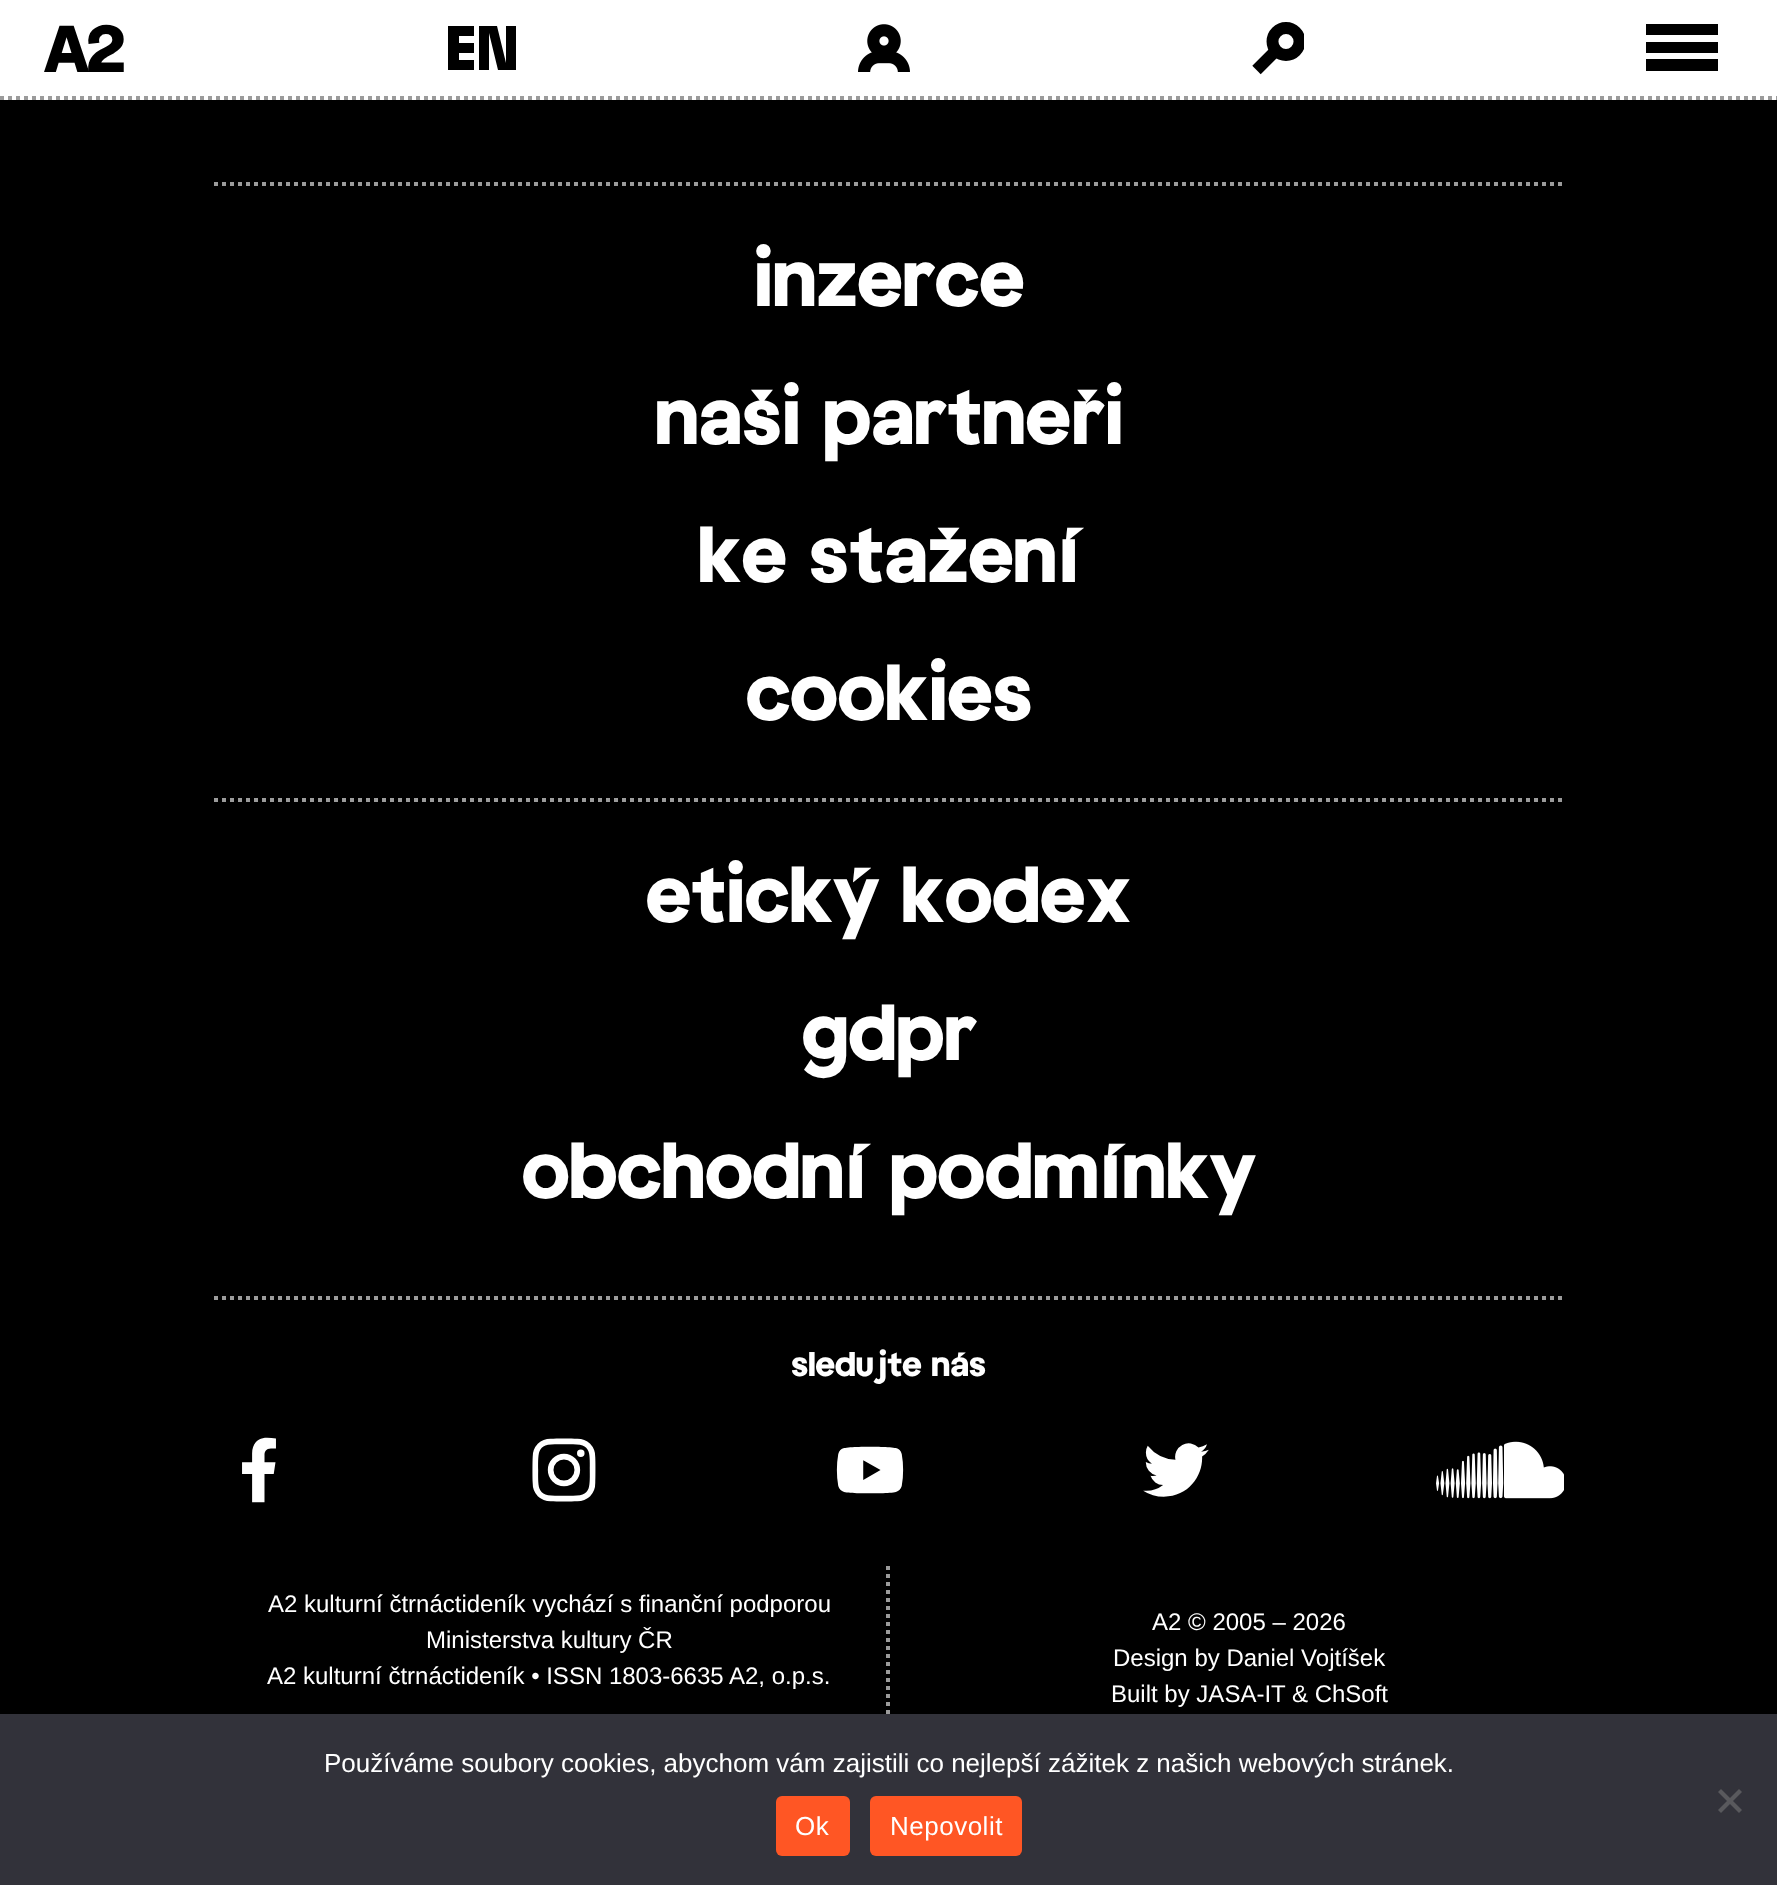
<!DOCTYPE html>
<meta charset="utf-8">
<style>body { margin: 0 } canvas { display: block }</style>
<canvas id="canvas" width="1777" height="1885"></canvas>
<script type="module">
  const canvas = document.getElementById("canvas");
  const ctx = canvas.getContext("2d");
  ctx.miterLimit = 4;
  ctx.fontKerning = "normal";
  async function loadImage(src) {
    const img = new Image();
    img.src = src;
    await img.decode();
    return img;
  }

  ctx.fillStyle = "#000000";
  ctx.fillRect(0, 0, 1777, 1885);
  ctx.fillStyle = "#ffffff";
  ctx.fillRect(0, 0, 1777, 100);
  ctx.beginPath();
  ctx.moveTo(0, 98);
  ctx.lineTo(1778, 98);
  ctx.strokeStyle = "#9b9b9b";
  ctx.lineWidth = 4;
  ctx.setLineDash([4, 4]);
  ctx.stroke();
  ctx.letterSpacing = "-4px";
  ctx.font = "900 64px 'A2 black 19'";
  ctx.fillStyle = "#000000";
  ctx.fillText("A2", 44, 72);
  ctx.beginPath();
  ctx.moveTo(459, 36);
  ctx.lineTo(474, 36);
  ctx.lineTo(474, 26);
  ctx.lineTo(448, 26);
  ctx.lineTo(448, 70);
  ctx.lineTo(474, 70);
  ctx.lineTo(474, 60);
  ctx.lineTo(459, 60);
  ctx.lineTo(459, 53);
  ctx.lineTo(474, 53);
  ctx.lineTo(474, 43);
  ctx.lineTo(459, 43);
  ctx.closePath();
  ctx.moveTo(516, 26);
  ctx.lineTo(506, 26);
  ctx.lineTo(506, 63);
  ctx.lineTo(497, 26);
  ctx.lineTo(479, 26);
  ctx.lineTo(479, 70);
  ctx.lineTo(489, 70);
  ctx.lineTo(489, 33);
  ctx.lineTo(498, 70);
  ctx.lineTo(516, 70);
  ctx.closePath();
  ctx.fill();
  ctx.drawImage(await loadImage("img1.png"), 858, 24, 52, 48);
  ctx.save();
  ctx.beginPath();
  ctx.rect(1252, 22, 52, 52);
  ctx.clip();
  ctx.beginPath();
  ctx.arc(1286, 41.5, 13.5, 0, Math.PI * 2);
  ctx.strokeStyle = "#000000";
  ctx.lineWidth = 11.9;
  ctx.setLineDash([]);
  ctx.stroke();
  ctx.restore();
  ctx.beginPath();
  ctx.moveTo(1276, 50.5);
  ctx.lineTo(1256.5, 70);
  ctx.strokeStyle = "#000000";
  ctx.lineWidth = 11.9;
  ctx.setLineDash([]);
  ctx.stroke();
  ctx.fillRect(1646, 24, 72, 11);
  ctx.fillRect(1646, 42, 72, 11);
  ctx.fillRect(1646, 59, 72, 12);
  ctx.beginPath();
  ctx.moveTo(214, 184);
  ctx.lineTo(1566, 184);
  ctx.strokeStyle = "#9b9b9b";
  ctx.lineWidth = 4;
  ctx.setLineDash([4, 4]);
  ctx.stroke();
  ctx.beginPath();
  ctx.moveTo(214, 800);
  ctx.lineTo(1566, 800);
  ctx.stroke();
  ctx.letterSpacing = "0px";
  ctx.font = "900 74px 'A2 black 19'";
  ctx.fillStyle = "#ffffff";
  ctx.fillText("inzerce", 754, 306);
  ctx.fillText("naši partneři", 655, 444);
  ctx.fillText("ke stažení", 698, 582);
  ctx.fillText("cookies", 746, 720);
  ctx.fillText("etický kodex", 646, 922);
  ctx.fillText("gdpr", 802, 1060);
  ctx.fillText("obchodní podmínky", 522, 1198);
  ctx.beginPath();
  ctx.moveTo(214, 1298);
  ctx.lineTo(1566, 1298);
  ctx.stroke();
  ctx.font = "900 32px 'A2 black 19'";
  ctx.fillText("sledujte nás", 791, 1376);
  ctx.drawImage(await loadImage("img2.png"), 242, 1437, 34, 66);
  ctx.drawImage(await loadImage("img3.png"), 532, 1438, 64, 64);
  ctx.drawImage(await loadImage("img4.png"), 836, 1446, 68, 48);
  ctx.drawImage(await loadImage("img5.png"), 1143, 1443, 66, 54);
  ctx.drawImage(await loadImage("img6.png"), 1436, 1441, 128, 58);
  ctx.beginPath();
  ctx.moveTo(888, 1566);
  ctx.lineTo(888, 1750);
  ctx.stroke();
  ctx.font = "24px Liberation Sans";
  ctx.fillText("A2 kulturní čtrnáctideník vychází s finanční podporou", 268, 1612);
  ctx.fillText("Ministerstva kultury ČR", 426, 1648);
  ctx.fillText("A2 kulturní čtrnáctideník • ISSN 1803-6635 A2, o.p.s.", 267, 1684);
  ctx.fillText("A2 © 2005 – 2026", 1152, 1630);
  ctx.fillText("Design by Daniel Vojtíšek", 1113, 1666);
  ctx.fillText("Built by JASA-IT & ChSoft", 1111, 1702);
  ctx.fillStyle = "#32323a";
  ctx.fillRect(0, 1714, 1777, 171);
  ctx.font = "26px Liberation Sans";
  ctx.fillStyle = "#ffffff";
  ctx.fillText("Používáme soubory cookies, abychom vám zajistili co nejlepší zážitek z našich webových stránek.", 324, 1772);
  ctx.fillStyle = "#59595d";
  ctx.beginPath();
  ctx.moveTo(1739, 1789);
  ctx.lineTo(1742, 1792);
  ctx.lineTo(1721, 1813);
  ctx.lineTo(1718, 1810);
  ctx.closePath();
  ctx.fill();
  ctx.beginPath();
  ctx.moveTo(1718, 1792);
  ctx.lineTo(1721, 1789);
  ctx.lineTo(1742, 1810);
  ctx.lineTo(1739, 1813);
  ctx.closePath();
  ctx.fill();
  ctx.fillStyle = "#ff5624";
  ctx.beginPath();
  ctx.roundRect(776, 1796, 74, 60, 6);
  ctx.fill();
  ctx.letterSpacing = "0.5px";
  ctx.fillStyle = "#ffffff";
  ctx.fillText("Ok", 795, 1835);
  ctx.fillStyle = "#ff5624";
  ctx.beginPath();
  ctx.roundRect(870, 1796, 152, 60, 6);
  ctx.fill();
  ctx.fillStyle = "#ffffff";
  ctx.fillText("Nepovolit", 890, 1835);
</script>
